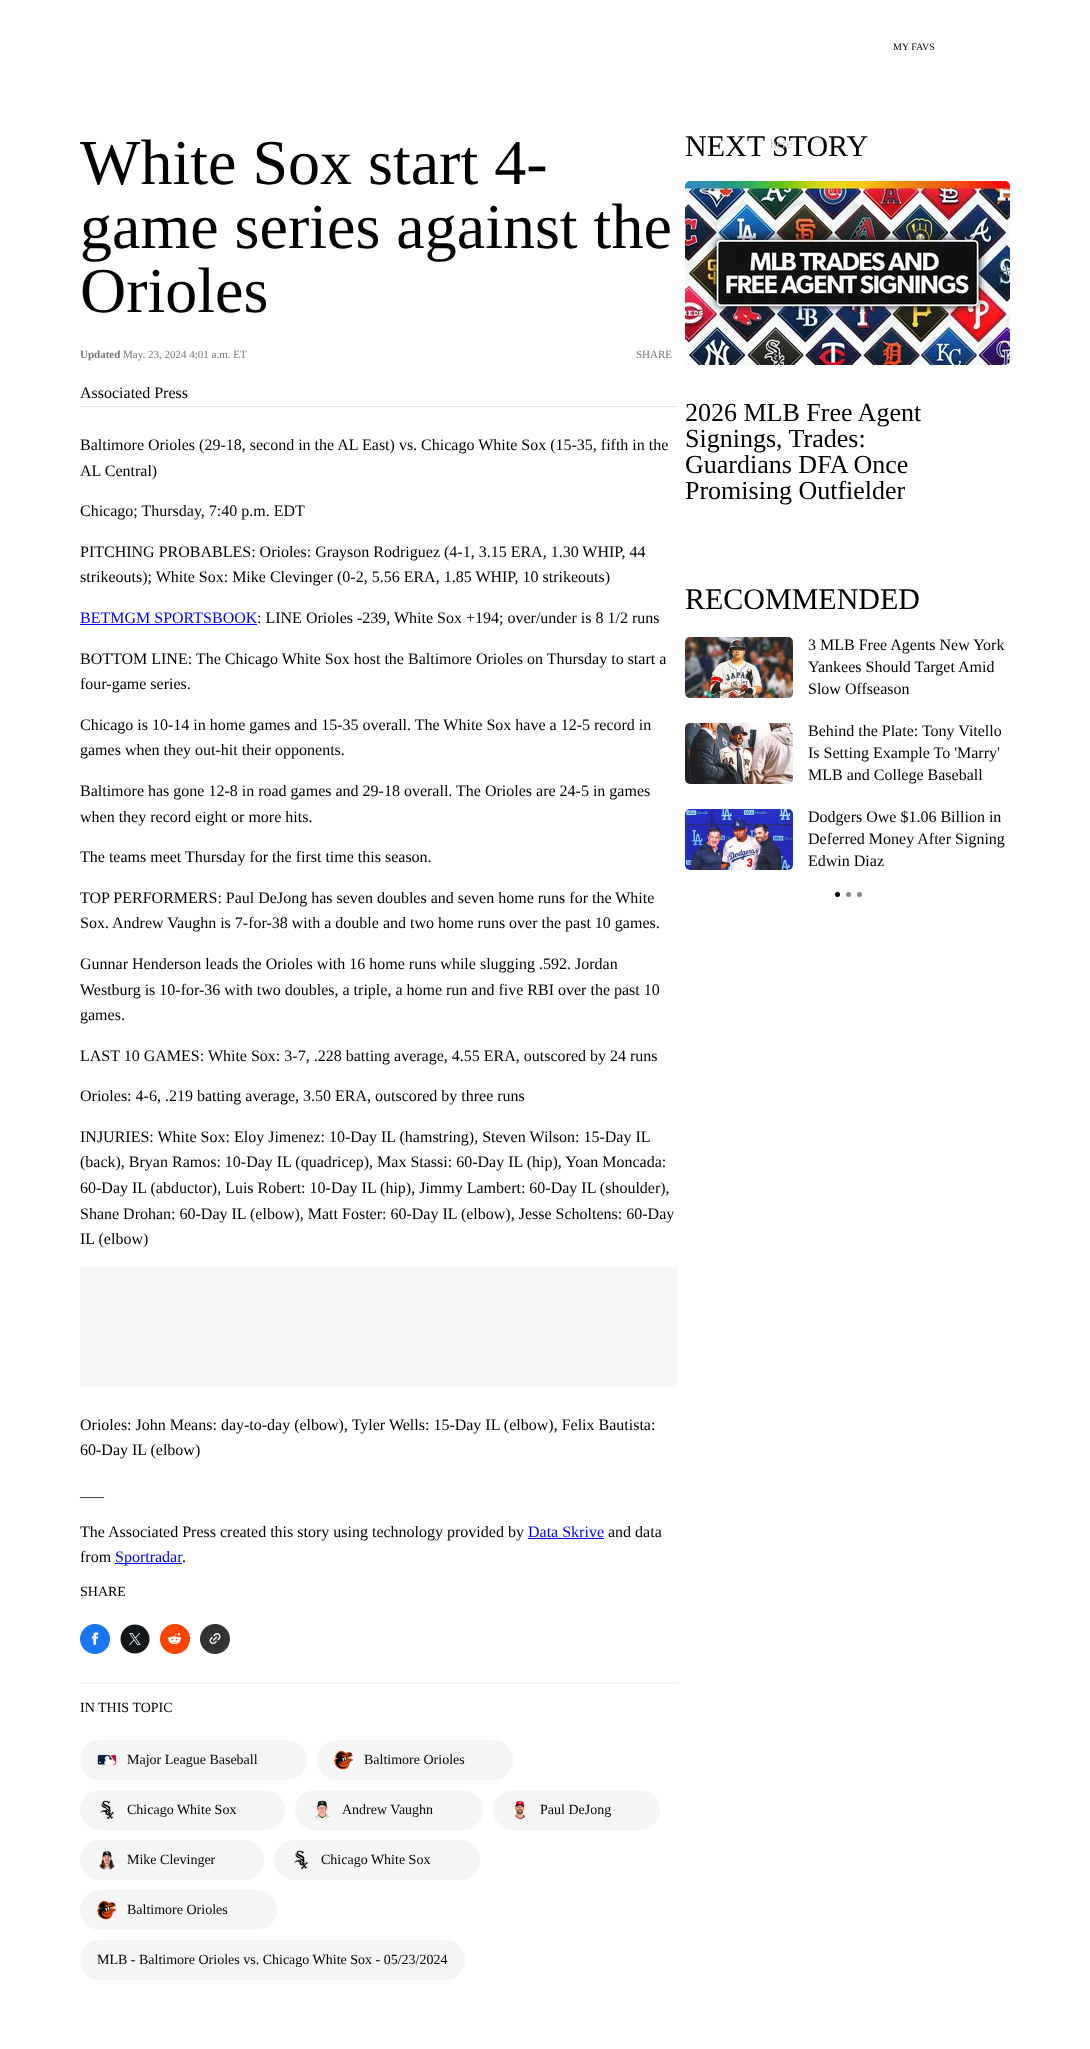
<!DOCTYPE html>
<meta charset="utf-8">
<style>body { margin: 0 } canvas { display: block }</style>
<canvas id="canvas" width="1090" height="2049"></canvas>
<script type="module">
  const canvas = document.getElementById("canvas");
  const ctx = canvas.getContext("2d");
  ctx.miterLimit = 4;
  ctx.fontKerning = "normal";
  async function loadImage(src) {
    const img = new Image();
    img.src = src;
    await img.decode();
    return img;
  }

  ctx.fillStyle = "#ffffff";
  ctx.fillRect(0, 0, 1090, 2049);
  ctx.font = "10px Liberation Serif";
  ctx.fillStyle = "#000000";
  ctx.fillText("MY FAVS", 893, 50);
  ctx.font = "30px Liberation Serif";
  ctx.fillText("NEXT STORY", 685, 156);
  ctx.font = "13px Liberation Serif";
  ctx.fillStyle = "#cacaca";
  ctx.fillText("here", 770, 148);
  ctx.font = "64px Liberation Serif";
  ctx.fillStyle = "#000000";
  ctx.fillText("White Sox start 4-", 80, 184);
  ctx.fillText("game series against the", 80, 248);
  ctx.fillText("Orioles", 80, 312);
  ctx.font = "bold 11px Liberation Serif";
  ctx.fillStyle = "#757575";
  ctx.fillText("Updated", 80, 358);
  ctx.font = "11px Liberation Serif";
  ctx.fillText("May. 23, 2024 4:01 a.m. ET", 123, 358);
  ctx.fillText("SHARE", 636, 358);
  ctx.fillStyle = "#e5e5e5";
  ctx.fillRect(80, 406, 597, 1);
  ctx.font = "16px Liberation Serif";
  ctx.fillStyle = "#000000";
  ctx.fillText("Associated Press", 80, 398);
  ctx.fillText("Baltimore Orioles (29-18, second in the AL East) vs. Chicago White Sox (15-35, fifth in the", 80, 450);
  ctx.fillText("AL Central)", 80, 476);
  ctx.fillText("Chicago; Thursday, 7:40 p.m. EDT", 80, 516);
  ctx.fillText("PITCHING PROBABLES: Orioles: Grayson Rodriguez (4-1, 3.15 ERA, 1.30 WHIP, 44", 80, 557);
  ctx.fillText("strikeouts); White Sox: Mike Clevinger (0-2, 5.56 ERA, 1.85 WHIP, 10 strikeouts)", 80, 582);
  ctx.fillStyle = "#0000ee";
  ctx.fillText("BETMGM SPORTSBOOK", 80, 623);
  ctx.fillRect(80, 624, 177, 1);
  ctx.fillStyle = "#000000";
  ctx.fillText(": LINE Orioles -239, White Sox +194; over/under is 8 1/2 runs", 257, 623);
  ctx.fillText("BOTTOM LINE: The Chicago White Sox host the Baltimore Orioles on Thursday to start a", 80, 664);
  ctx.fillText("four-game series.", 80, 689);
  ctx.fillText("Chicago is 10-14 in home games and 15-35 overall. The White Sox have a 12-5 record in", 80, 730);
  ctx.fillText("games when they out-hit their opponents.", 80, 755);
  ctx.fillText("Baltimore has gone 12-8 in road games and 29-18 overall. The Orioles are 24-5 in games", 80, 796);
  ctx.fillText("when they record eight or more hits.", 80, 822);
  ctx.fillText("The teams meet Thursday for the first time this season.", 80, 862);
  ctx.fillText("TOP PERFORMERS: Paul DeJong has seven doubles and seven home runs for the White", 80, 903);
  ctx.fillText("Sox. Andrew Vaughn is 7-for-38 with a double and two home runs over the past 10 games.", 80, 928);
  ctx.fillText("Gunnar Henderson leads the Orioles with 16 home runs while slugging .592. Jordan", 80, 969);
  ctx.fillText("Westburg is 10-for-36 with two doubles, a triple, a home run and five RBI over the past 10", 80, 995);
  ctx.fillText("games.", 80, 1020);
  ctx.fillText("LAST 10 GAMES: White Sox: 3-7, .228 batting average, 4.55 ERA, outscored by 24 runs", 80, 1061);
  ctx.fillText("Orioles: 4-6, .219 batting average, 3.50 ERA, outscored by three runs", 80, 1101);
  ctx.fillText("INJURIES: White Sox: Eloy Jimenez: 10-Day IL (hamstring), Steven Wilson: 15-Day IL", 80, 1142);
  ctx.fillText("(back), Bryan Ramos: 10-Day IL (quadricep), Max Stassi: 60-Day IL (hip), Yoan Moncada:", 80, 1167);
  ctx.fillText("60-Day IL (abductor), Luis Robert: 10-Day IL (hip), Jimmy Lambert: 60-Day IL (shoulder),", 80, 1193);
  ctx.fillText("Shane Drohan: 60-Day IL (elbow), Matt Foster: 60-Day IL (elbow), Jesse Scholtens: 60-Day", 80, 1219);
  ctx.fillText("IL (elbow)", 80, 1244);
  ctx.fillStyle = "#f7f7f7";
  ctx.fillRect(80, 1267, 597, 120);
  ctx.fillStyle = "#000000";
  ctx.fillText("Orioles: John Means: day-to-day (elbow), Tyler Wells: 15-Day IL (elbow), Felix Bautista:", 80, 1430);
  ctx.fillText("60-Day IL (elbow)", 80, 1455);
  ctx.fillText("___", 80, 1496);
  ctx.fillText("The Associated Press created this story using technology provided by", 80, 1537);
  ctx.fillStyle = "#0000ee";
  ctx.fillText("Data Skrive", 528, 1537);
  ctx.fillRect(528, 1538, 76, 1);
  ctx.fillStyle = "#000000";
  ctx.fillText("and data", 608, 1537);
  ctx.fillText("from", 80, 1562);
  ctx.fillStyle = "#0000ee";
  ctx.fillRect(115, 1563, 67, 1);
  ctx.fillText("Sportradar", 115, 1562);
  ctx.fillStyle = "#000000";
  ctx.fillText(".", 182, 1562);
  ctx.font = "14px Liberation Serif";
  ctx.fillText("SHARE", 80, 1596);
  ctx.drawImage(await loadImage("img1.png"), 80, 1624, 30, 30);
  ctx.drawImage(await loadImage("img2.png"), 120, 1624, 30, 30);
  ctx.drawImage(await loadImage("img3.png"), 160, 1624, 30, 30);
  ctx.drawImage(await loadImage("img4.png"), 200, 1624, 30, 30);
  ctx.fillStyle = "#f5f5f5";
  ctx.fillRect(80, 1682, 599, 2);
  ctx.fillStyle = "#000000";
  ctx.fillText("IN THIS TOPIC", 80, 1712);
  ctx.fillStyle = "#f5f5f5";
  ctx.beginPath();
  ctx.roundRect(80, 1740, 227, 40, 20);
  ctx.fill();
  ctx.drawImage(await loadImage("img5.png"), 97, 1754, 20, 12);
  ctx.fillStyle = "#000000";
  ctx.fillText("Major League Baseball", 127, 1764);
  ctx.fillStyle = "#f5f5f5";
  ctx.beginPath();
  ctx.roundRect(317, 1740, 196, 40, 20);
  ctx.fill();
  ctx.drawImage(await loadImage("img6.png"), 334, 1750, 19, 20);
  ctx.fillStyle = "#000000";
  ctx.fillText("Baltimore Orioles", 364, 1764);
  ctx.fillStyle = "#f5f5f5";
  ctx.beginPath();
  ctx.roundRect(80, 1790, 205, 40, 20);
  ctx.fill();
  ctx.drawImage(await loadImage("img7.png"), 99, 1800, 16, 20);
  ctx.fillStyle = "#000000";
  ctx.fillText("Chicago White Sox", 127, 1814);
  ctx.fillStyle = "#f5f5f5";
  ctx.beginPath();
  ctx.roundRect(295, 1790, 188, 40, 20);
  ctx.fill();
  ctx.drawImage(await loadImage("img8.png"), 314, 1800, 16, 20);
  ctx.fillStyle = "#000000";
  ctx.fillText("Andrew Vaughn", 342, 1814);
  ctx.fillStyle = "#f5f5f5";
  ctx.beginPath();
  ctx.roundRect(493, 1790, 167, 40, 20);
  ctx.fill();
  ctx.drawImage(await loadImage("img9.png"), 513, 1800, 14, 20);
  ctx.fillStyle = "#000000";
  ctx.fillText("Paul DeJong", 540, 1814);
  ctx.fillStyle = "#f5f5f5";
  ctx.beginPath();
  ctx.roundRect(80, 1840, 184, 40, 20);
  ctx.fill();
  ctx.drawImage(await loadImage("img10.png"), 99, 1851, 16, 19);
  ctx.fillStyle = "#000000";
  ctx.fillText("Mike Clevinger", 127, 1864);
  ctx.fillStyle = "#f5f5f5";
  ctx.beginPath();
  ctx.roundRect(274, 1840, 206, 40, 20);
  ctx.fill();
  ctx.drawImage(await loadImage("img7.png"), 293, 1850, 16, 20);
  ctx.fillStyle = "#000000";
  ctx.fillText("Chicago White Sox", 321, 1864);
  ctx.fillStyle = "#f5f5f5";
  ctx.beginPath();
  ctx.roundRect(80, 1890, 197, 40, 20);
  ctx.fill();
  ctx.drawImage(await loadImage("img6.png"), 97, 1900, 19, 20);
  ctx.fillStyle = "#000000";
  ctx.fillText("Baltimore Orioles", 127, 1914);
  ctx.fillStyle = "#f5f5f5";
  ctx.beginPath();
  ctx.roundRect(80, 1940, 385, 40, 20);
  ctx.fill();
  ctx.fillStyle = "#000000";
  ctx.fillText("MLB - Baltimore Orioles vs. Chicago White Sox - 05/23/2024", 97, 1964);
  ctx.drawImage(await loadImage("img11.png"), 685, 181, 325, 184);
  ctx.font = "26px Liberation Serif";
  ctx.fillText("2026 MLB Free Agent", 685, 421);
  ctx.fillText("Signings, Trades:", 685, 447);
  ctx.fillText("Guardians DFA Once", 685, 473);
  ctx.fillText("Promising Outfielder", 685, 499);
  ctx.font = "30px Liberation Serif";
  ctx.fillText("RECOMMENDED", 685, 609);
  ctx.drawImage(await loadImage("img12.png"), 685, 637, 108, 61);
  ctx.font = "16px Liberation Serif";
  ctx.fillText("3 MLB Free Agents New York", 808, 650);
  ctx.fillText("Yankees Should Target Amid", 808, 672);
  ctx.fillText("Slow Offseason", 808, 694);
  ctx.drawImage(await loadImage("img13.png"), 685, 723, 108, 61);
  ctx.fillText("Behind the Plate: Tony Vitello", 808, 736);
  ctx.fillText("Is Setting Example To 'Marry'", 808, 758);
  ctx.fillText("MLB and College Baseball", 808, 780);
  ctx.drawImage(await loadImage("img14.png"), 685, 809, 108, 61);
  ctx.fillText("Dodgers Owe $1.06 Billion in", 808, 822);
  ctx.fillText("Deferred Money After Signing", 808, 844);
  ctx.fillText("Edwin Diaz", 808, 866);
  ctx.beginPath();
  ctx.arc(837.5, 894.5, 2.5, 0, Math.PI * 2);
  ctx.fill();
  ctx.fillStyle = "#848790";
  ctx.beginPath();
  ctx.arc(848.5, 894.5, 2.5, 0, Math.PI * 2);
  ctx.fill();
  ctx.beginPath();
  ctx.arc(859.5, 894.5, 2.5, 0, Math.PI * 2);
  ctx.fill();
</script>
